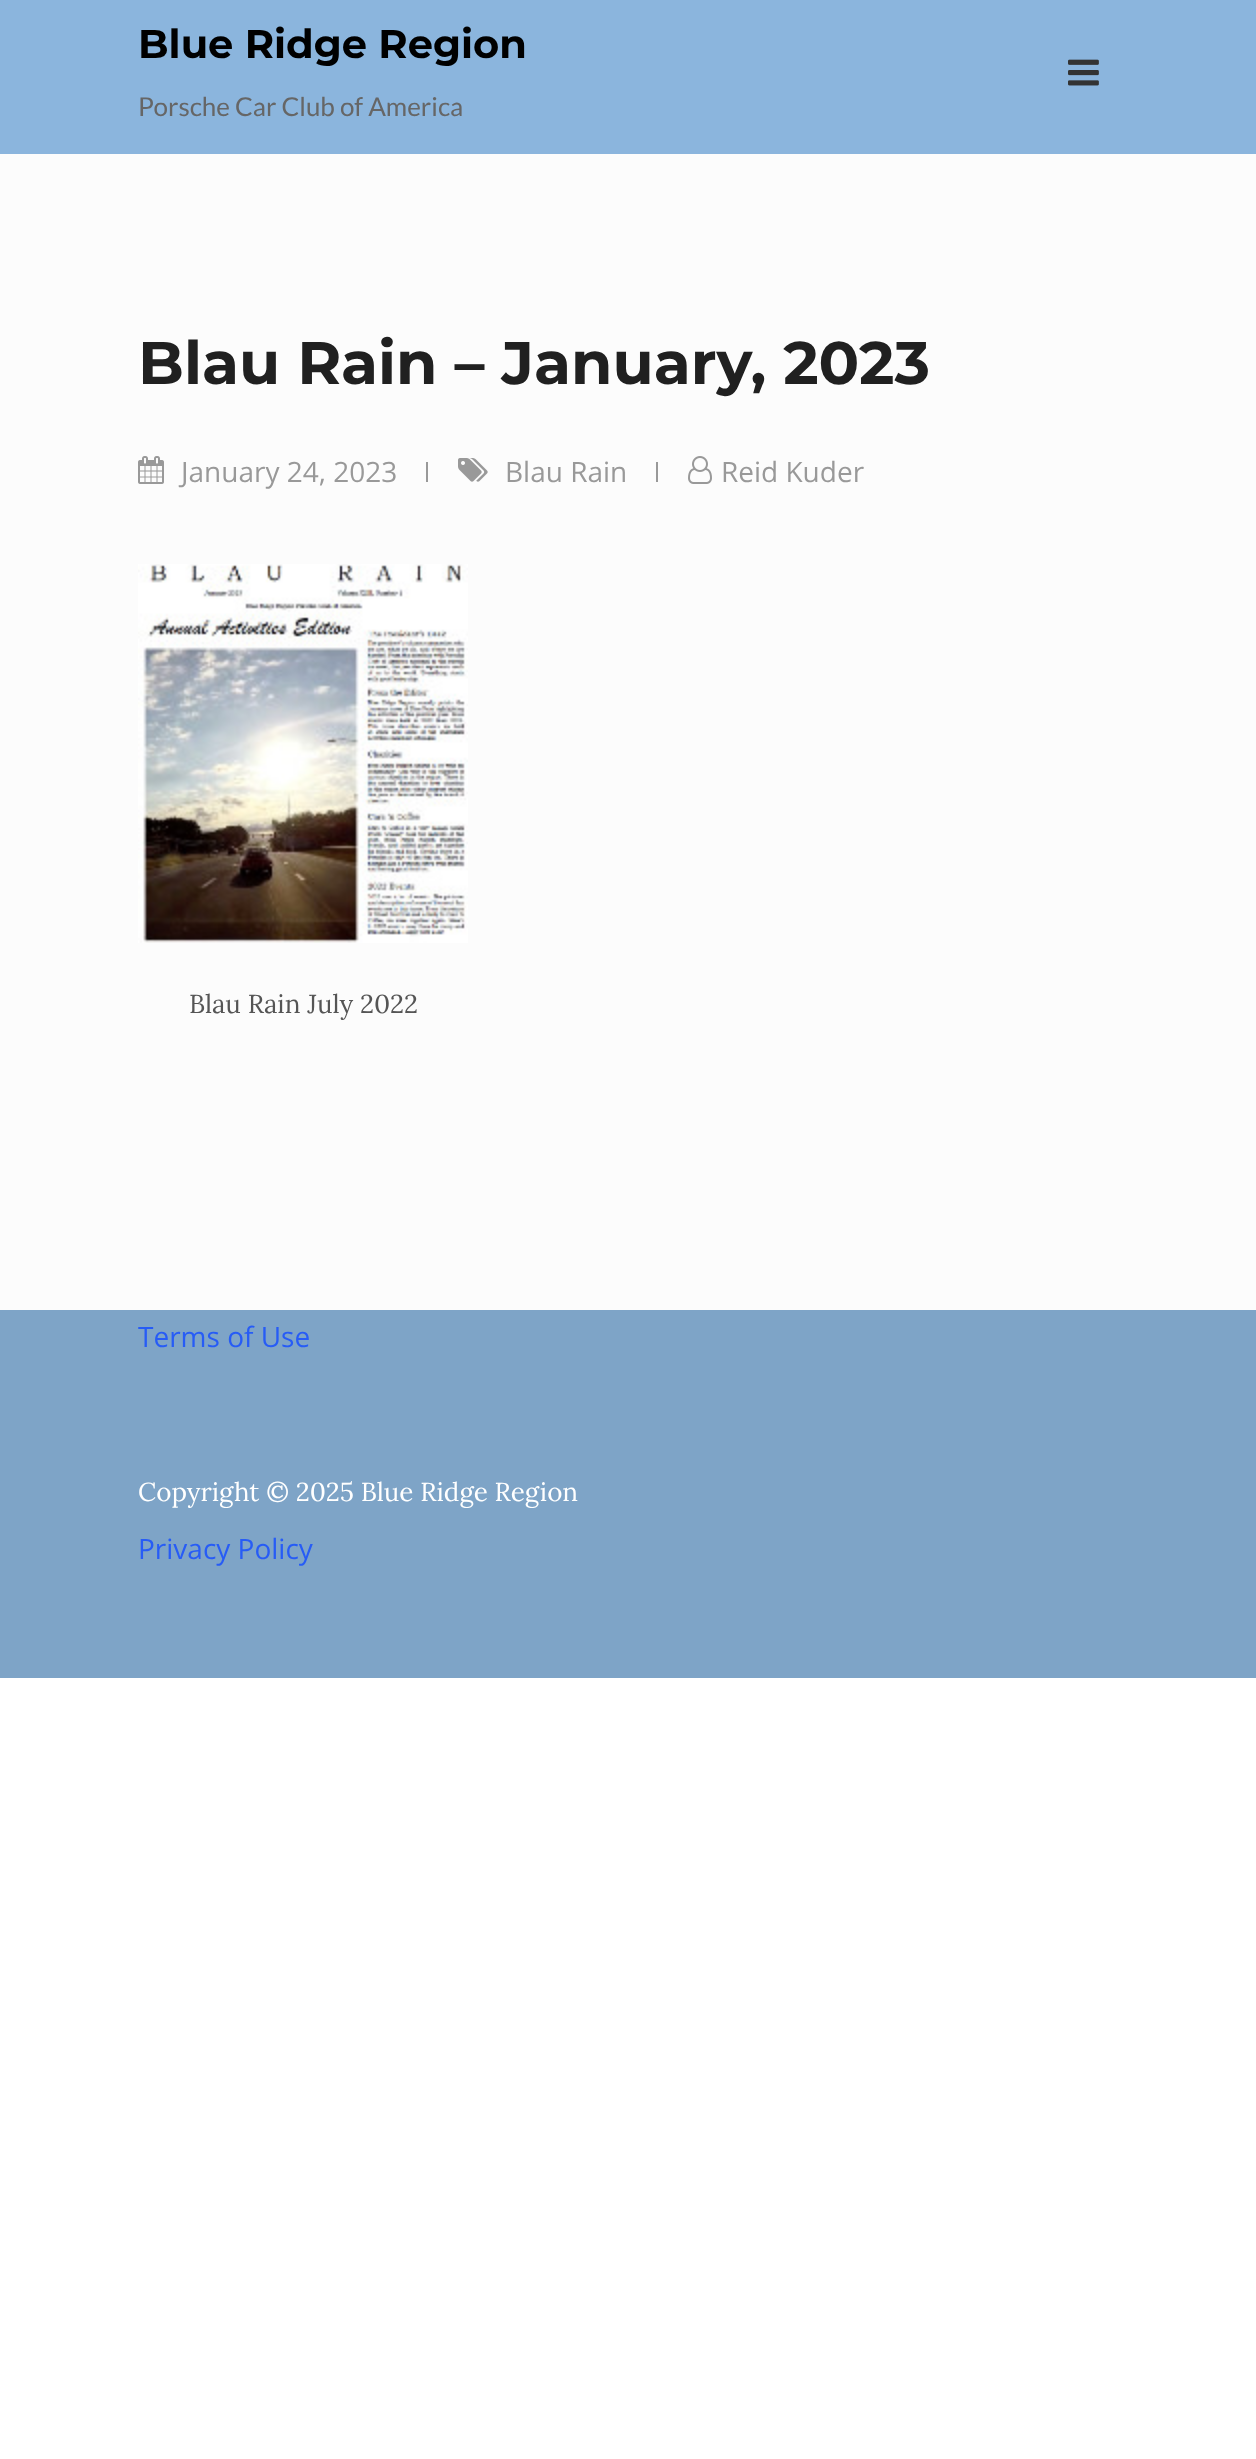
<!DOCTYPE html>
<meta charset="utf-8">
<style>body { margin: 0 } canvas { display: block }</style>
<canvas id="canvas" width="1256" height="2459"></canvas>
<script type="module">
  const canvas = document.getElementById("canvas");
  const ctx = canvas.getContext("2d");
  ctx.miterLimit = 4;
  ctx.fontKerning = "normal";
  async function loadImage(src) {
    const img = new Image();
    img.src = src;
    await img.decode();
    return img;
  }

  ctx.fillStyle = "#ffffff";
  ctx.fillRect(0, 0, 1256, 2459);
  ctx.fillStyle = "#8bb5dd";
  ctx.fillRect(0, 0, 1256, 154);
  ctx.font = "bold 40px Montserrat";
  ctx.fillStyle = "#000000";
  ctx.fillText("Blue Ridge Region", 138, 58);
  ctx.font = "26px Lato";
  ctx.fillStyle = "#666666";
  ctx.fillText("Porsche Car Club of America", 138, 116);
  ctx.drawImage(await loadImage("img1.png"), 1068, 59, 31, 27);
  ctx.fillStyle = "#fcfcfc";
  ctx.fillRect(0, 154, 1256, 1156);
  ctx.font = "bold 60px Montserrat";
  ctx.fillStyle = "#202020";
  ctx.fillText("Blau Rain – January, 2023", 138, 384);
  ctx.drawImage(await loadImage("img2.png"), 138, 456, 26, 28);
  ctx.font = "28px Open Sans";
  ctx.fillStyle = "#999999";
  ctx.fillText("January 24, 2023", 181, 482);
  ctx.fillRect(426, 462, 2, 20);
  ctx.drawImage(await loadImage("img3.png"), 458, 458, 30, 24);
  ctx.fillText("Blau Rain", 505, 482);
  ctx.fillRect(656, 462, 2, 20);
  ctx.drawImage(await loadImage("img4.png"), 688, 456, 24, 28);
  ctx.fillText("Reid Kuder", 721, 482);
  ctx.drawImage(await loadImage("img5.png"), 138, 564, 330, 379);
  ctx.font = "26px Lora";
  ctx.fillStyle = "#555555";
  ctx.fillText("Blau Rain July 2022", 189, 1013);
  ctx.fillStyle = "#7ea4c7";
  ctx.fillRect(0, 1310, 1256, 368);
  ctx.font = "28px Open Sans";
  ctx.fillStyle = "#275cf6";
  ctx.fillText("Terms of Use", 138, 1347);
  ctx.font = "26px Lora";
  ctx.fillStyle = "#ffffff";
  ctx.fillText("Copyright © 2025 Blue Ridge Region", 138, 1501);
  ctx.font = "28px Open Sans";
  ctx.fillStyle = "#275cf6";
  ctx.fillText("Privacy Policy", 138, 1559);
</script>
